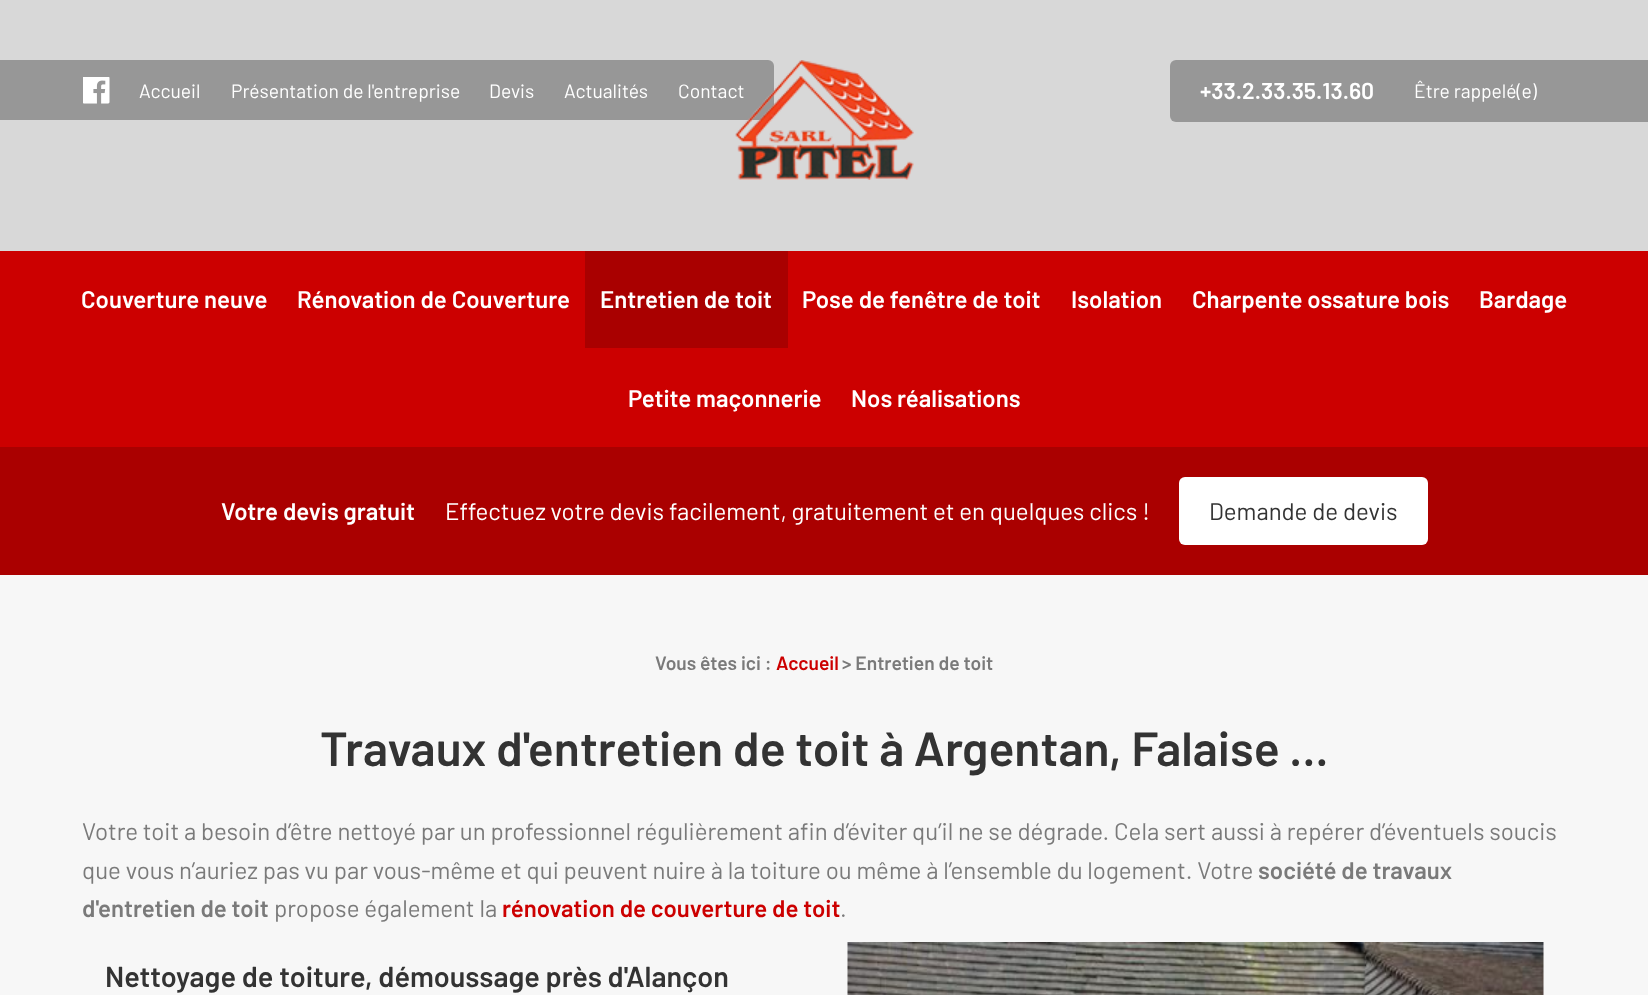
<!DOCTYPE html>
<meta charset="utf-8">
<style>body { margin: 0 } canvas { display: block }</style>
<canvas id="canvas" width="1648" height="995"></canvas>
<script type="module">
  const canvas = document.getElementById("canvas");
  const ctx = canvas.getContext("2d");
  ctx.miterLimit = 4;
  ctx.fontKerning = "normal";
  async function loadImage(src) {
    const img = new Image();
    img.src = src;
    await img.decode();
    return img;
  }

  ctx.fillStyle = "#f7f7f7";
  ctx.fillRect(0, 0, 1648, 995);
  ctx.fillStyle = "#d8d8d8";
  ctx.fillRect(0, 0, 1648, 251);
  ctx.fillStyle = "#979797";
  ctx.beginPath();
  ctx.roundRect(83, 60, 691, 60, [0, 6, 6, 0]);
  ctx.fill();
  ctx.font = "19.25px Barlow";
  ctx.fillStyle = "#ffffff";
  ctx.fillText("Contact", 678, 98);
  ctx.drawImage(await loadImage("img1.png"), 735, 60, 179, 120);
  ctx.fillStyle = "#979797";
  ctx.fillRect(0, 60, 83, 60);
  ctx.drawImage(await loadImage("img2.png"), 83, 77, 27, 27);
  ctx.fillStyle = "#ffffff";
  ctx.fillText("Accueil", 139, 98);
  ctx.fillText("Présentation de l'entreprise", 231, 98);
  ctx.fillText("Devis", 489, 98);
  ctx.fillText("Actualités", 564, 98);
  ctx.fillStyle = "#979797";
  ctx.beginPath();
  ctx.roundRect(1170, 60, 396, 62, [6, 0, 0, 6]);
  ctx.fill();
  ctx.font = "600 23px Barlow";
  ctx.fillStyle = "#ffffff";
  ctx.fillText("+33.2.33.35.13.60", 1200, 99);
  ctx.font = "19.25px Barlow";
  ctx.fillText("Être rappelé(e)", 1414, 98);
  ctx.fillStyle = "#979797";
  ctx.fillRect(1566, 60, 82, 62);
  ctx.fillStyle = "#cc0000";
  ctx.fillRect(0, 251, 1648, 196);
  ctx.font = "600 24px Barlow";
  ctx.fillStyle = "#ffffff";
  ctx.fillText("Couverture neuve", 81, 308);
  ctx.fillText("Rénovation de Couverture", 297, 308);
  ctx.fillStyle = "#a90000";
  ctx.fillRect(585, 251, 203, 97);
  ctx.fillStyle = "#ffffff";
  ctx.fillText("Entretien de toit", 600, 308);
  ctx.fillText("Pose de fenêtre de toit", 802, 308);
  ctx.fillText("Isolation", 1071, 308);
  ctx.fillText("Charpente ossature bois", 1192, 308);
  ctx.fillText("Bardage", 1479, 308);
  ctx.fillText("Petite maçonnerie", 628, 407);
  ctx.fillText("Nos réalisations", 851, 407);
  ctx.fillStyle = "#aa0000";
  ctx.fillRect(0, 447, 1648, 128);
  ctx.fillStyle = "#ffffff";
  ctx.fillText("Votre devis gratuit", 221, 520);
  ctx.font = "24px Barlow";
  ctx.fillText("Effectuez votre devis facilement, gratuitement et en quelques clics !", 445, 520);
  ctx.beginPath();
  ctx.roundRect(1179, 477, 249, 68, 6);
  ctx.fill();
  ctx.fillStyle = "#333333";
  ctx.fillText("Demande de devis", 1209, 520);
  ctx.font = "600 19.25px Barlow";
  ctx.fillStyle = "#7a7a7a";
  ctx.fillText("Vous êtes ici :", 655, 670);
  ctx.fillStyle = "#cc0000";
  ctx.fillText("Accueil", 776, 670);
  ctx.fillStyle = "#7a7a7a";
  ctx.fillText("> Entretien de toit", 842, 670);
  ctx.font = "600 48px Barlow";
  ctx.fillStyle = "#333333";
  ctx.fillText("Travaux d'entretien de toit à Argentan, Falaise ...", 320, 766);
  ctx.font = "24px Barlow";
  ctx.fillStyle = "#7a7a7a";
  ctx.fillText("Votre toit a besoin d’être nettoyé par un professionnel régulièrement afin d’éviter qu’il ne se dégrade. Cela sert aussi à repérer d’éventuels soucis", 82, 840);
  ctx.fillText("que vous n’auriez pas vu par vous-même et qui peuvent nuire à la toiture ou même à l’ensemble du logement. Votre", 82, 879);
  ctx.font = "600 24px Barlow";
  ctx.fillText("société de travaux", 1258, 879);
  ctx.fillText("d'entretien de toit", 82, 917);
  ctx.font = "24px Barlow";
  ctx.fillText("propose également la", 274, 917);
  ctx.font = "600 24px Barlow";
  ctx.fillStyle = "#cc0000";
  ctx.fillText("rénovation de couverture de toit", 502, 917);
  ctx.font = "24px Barlow";
  ctx.fillStyle = "#7a7a7a";
  ctx.fillText(".", 840, 917);
  ctx.font = "600 28.8px Barlow";
  ctx.fillStyle = "#333333";
  ctx.fillText("Nettoyage de toiture, démoussage près d'Alançon", 105, 987);
  ctx.drawImage(await loadImage("img3.png"), 847, 942, 697, 53);
</script>
